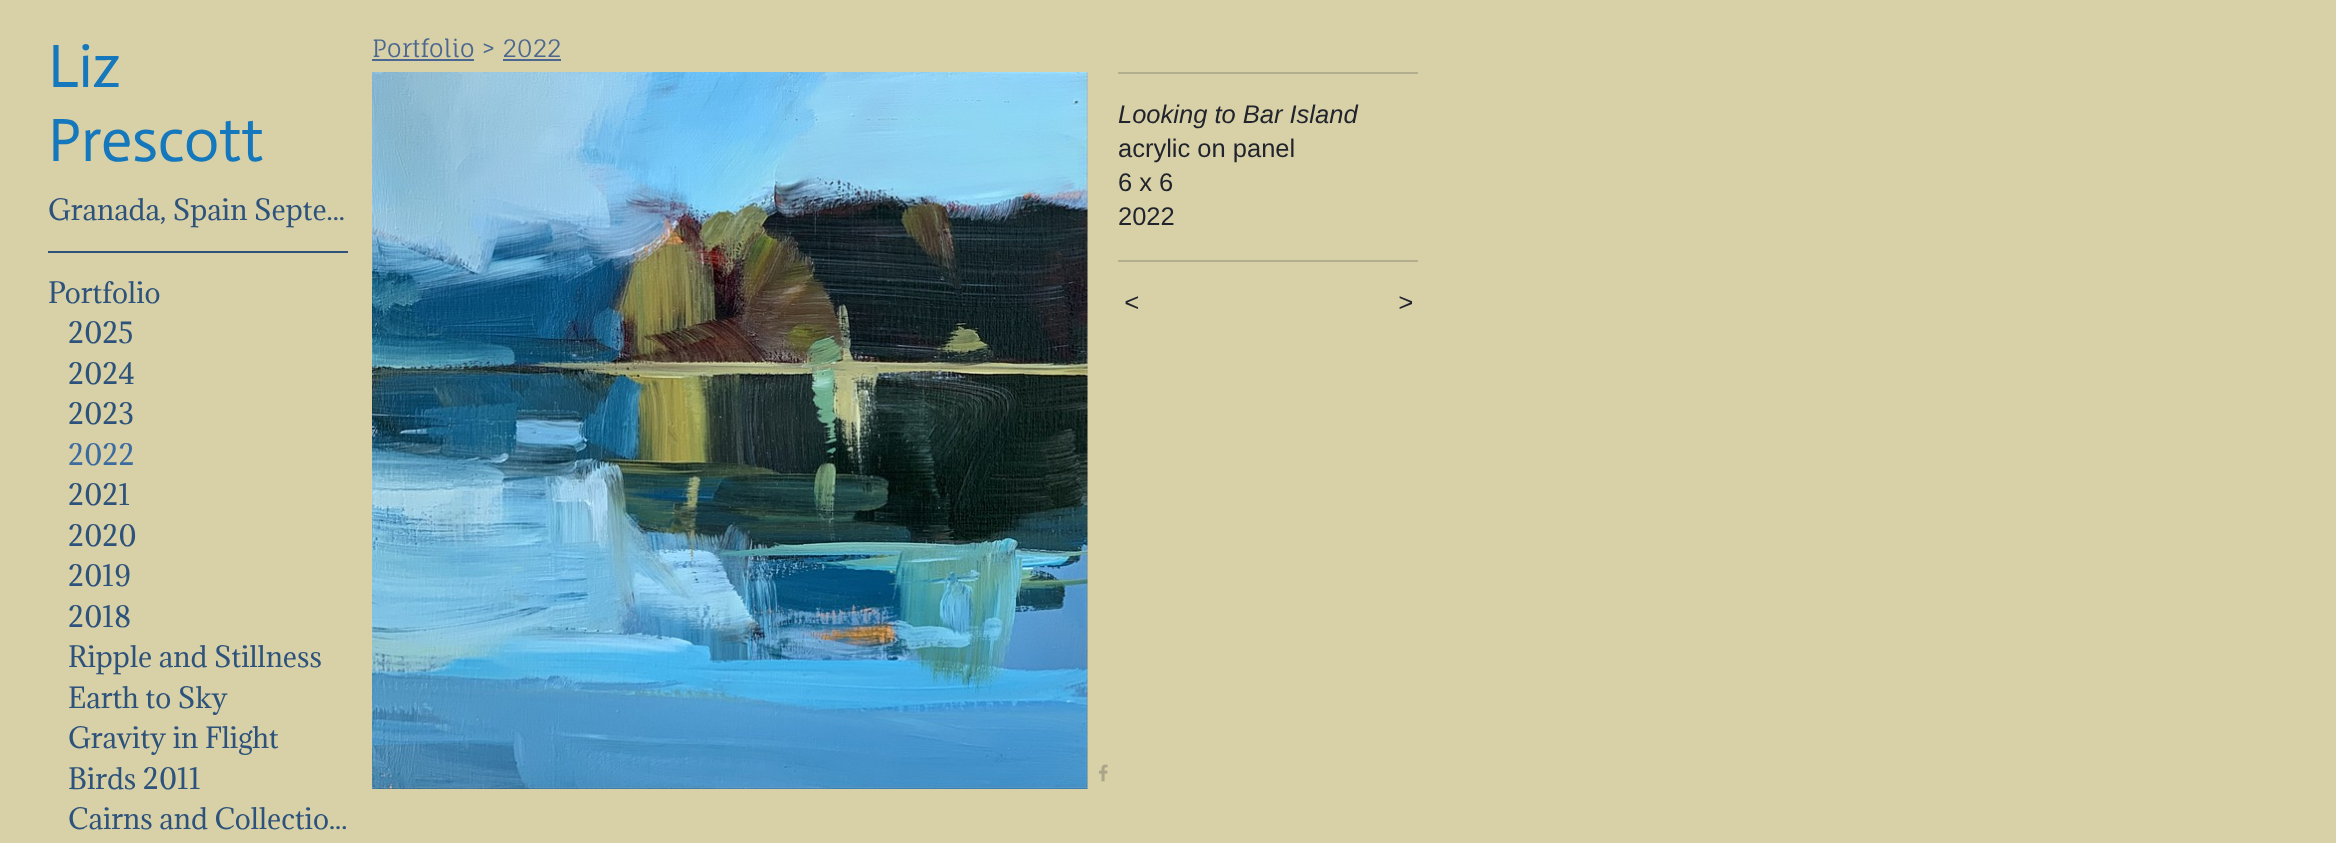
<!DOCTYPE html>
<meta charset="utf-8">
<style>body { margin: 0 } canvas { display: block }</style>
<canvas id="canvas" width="2336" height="843"></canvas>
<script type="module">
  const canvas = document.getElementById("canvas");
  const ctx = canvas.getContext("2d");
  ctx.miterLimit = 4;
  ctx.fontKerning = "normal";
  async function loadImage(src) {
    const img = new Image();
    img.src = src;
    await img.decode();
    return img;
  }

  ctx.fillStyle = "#d8d1a7";
  ctx.fillRect(0, 0, 2336, 843);
  ctx.font = "61.5px Actor";
  ctx.fillStyle = "#1578bc";
  ctx.fillText("Liz", 48, 87);
  ctx.fillText("Prescott", 48, 161);
  ctx.font = "27px Adamina";
  ctx.fillStyle = "#2d527b";
  ctx.fillText("Granada, Spain Septe...", 48, 220);
  ctx.fillRect(48, 251, 300, 2);
  ctx.fillText("Portfolio", 48, 303);
  ctx.fillText("2025", 68, 343);
  ctx.fillText("2024", 68, 384);
  ctx.fillText("2023", 68, 424);
  ctx.fillStyle = "#3b6ba0";
  ctx.fillText("2022", 68, 465);
  ctx.fillStyle = "#2d527b";
  ctx.fillText("2021", 68, 505);
  ctx.fillText("2020", 68, 546);
  ctx.fillText("2019", 68, 586);
  ctx.fillText("2018", 68, 627);
  ctx.fillText("Ripple and Stillness", 68, 667);
  ctx.fillText("Earth to Sky", 68, 708);
  ctx.fillText("Gravity in Flight", 68, 748);
  ctx.fillText("Birds 2011", 68, 789);
  ctx.fillText("Cairns and Collectio...", 68, 829);
  ctx.font = "24px Fauna One";
  ctx.fillStyle = "#4c6790";
  ctx.fillText("Portfolio > 2022", 372, 57);
  ctx.fillRect(372, 59, 102, 2);
  ctx.fillRect(503, 59, 58, 2);
  ctx.drawImage(await loadImage("img1.png"), 372, 72, 716, 717);
  ctx.drawImage(await loadImage("img2.png"), 1099, 764, 9, 18);
  ctx.fillStyle = "#b3ae8e";
  ctx.fillRect(1118, 72, 300, 2);
  ctx.font = "italic 25.5px Liberation Sans";
  ctx.fillStyle = "#21242c";
  ctx.fillText("Looking to Bar Island", 1118, 123);
  ctx.font = "25.5px Liberation Sans";
  ctx.fillText("acrylic on panel", 1118, 157);
  ctx.fillText("6 x 6", 1118, 191);
  ctx.fillText("2022", 1118, 225);
  ctx.fillStyle = "#b3ae8e";
  ctx.fillRect(1118, 260, 300, 2);
  ctx.letterSpacing = "2px";
  ctx.font = "italic 25.5px Liberation Sans";
  ctx.fillStyle = "#21242c";
  ctx.fillText("<", 1124, 311);
  ctx.fillText(">", 1398, 311);
</script>
